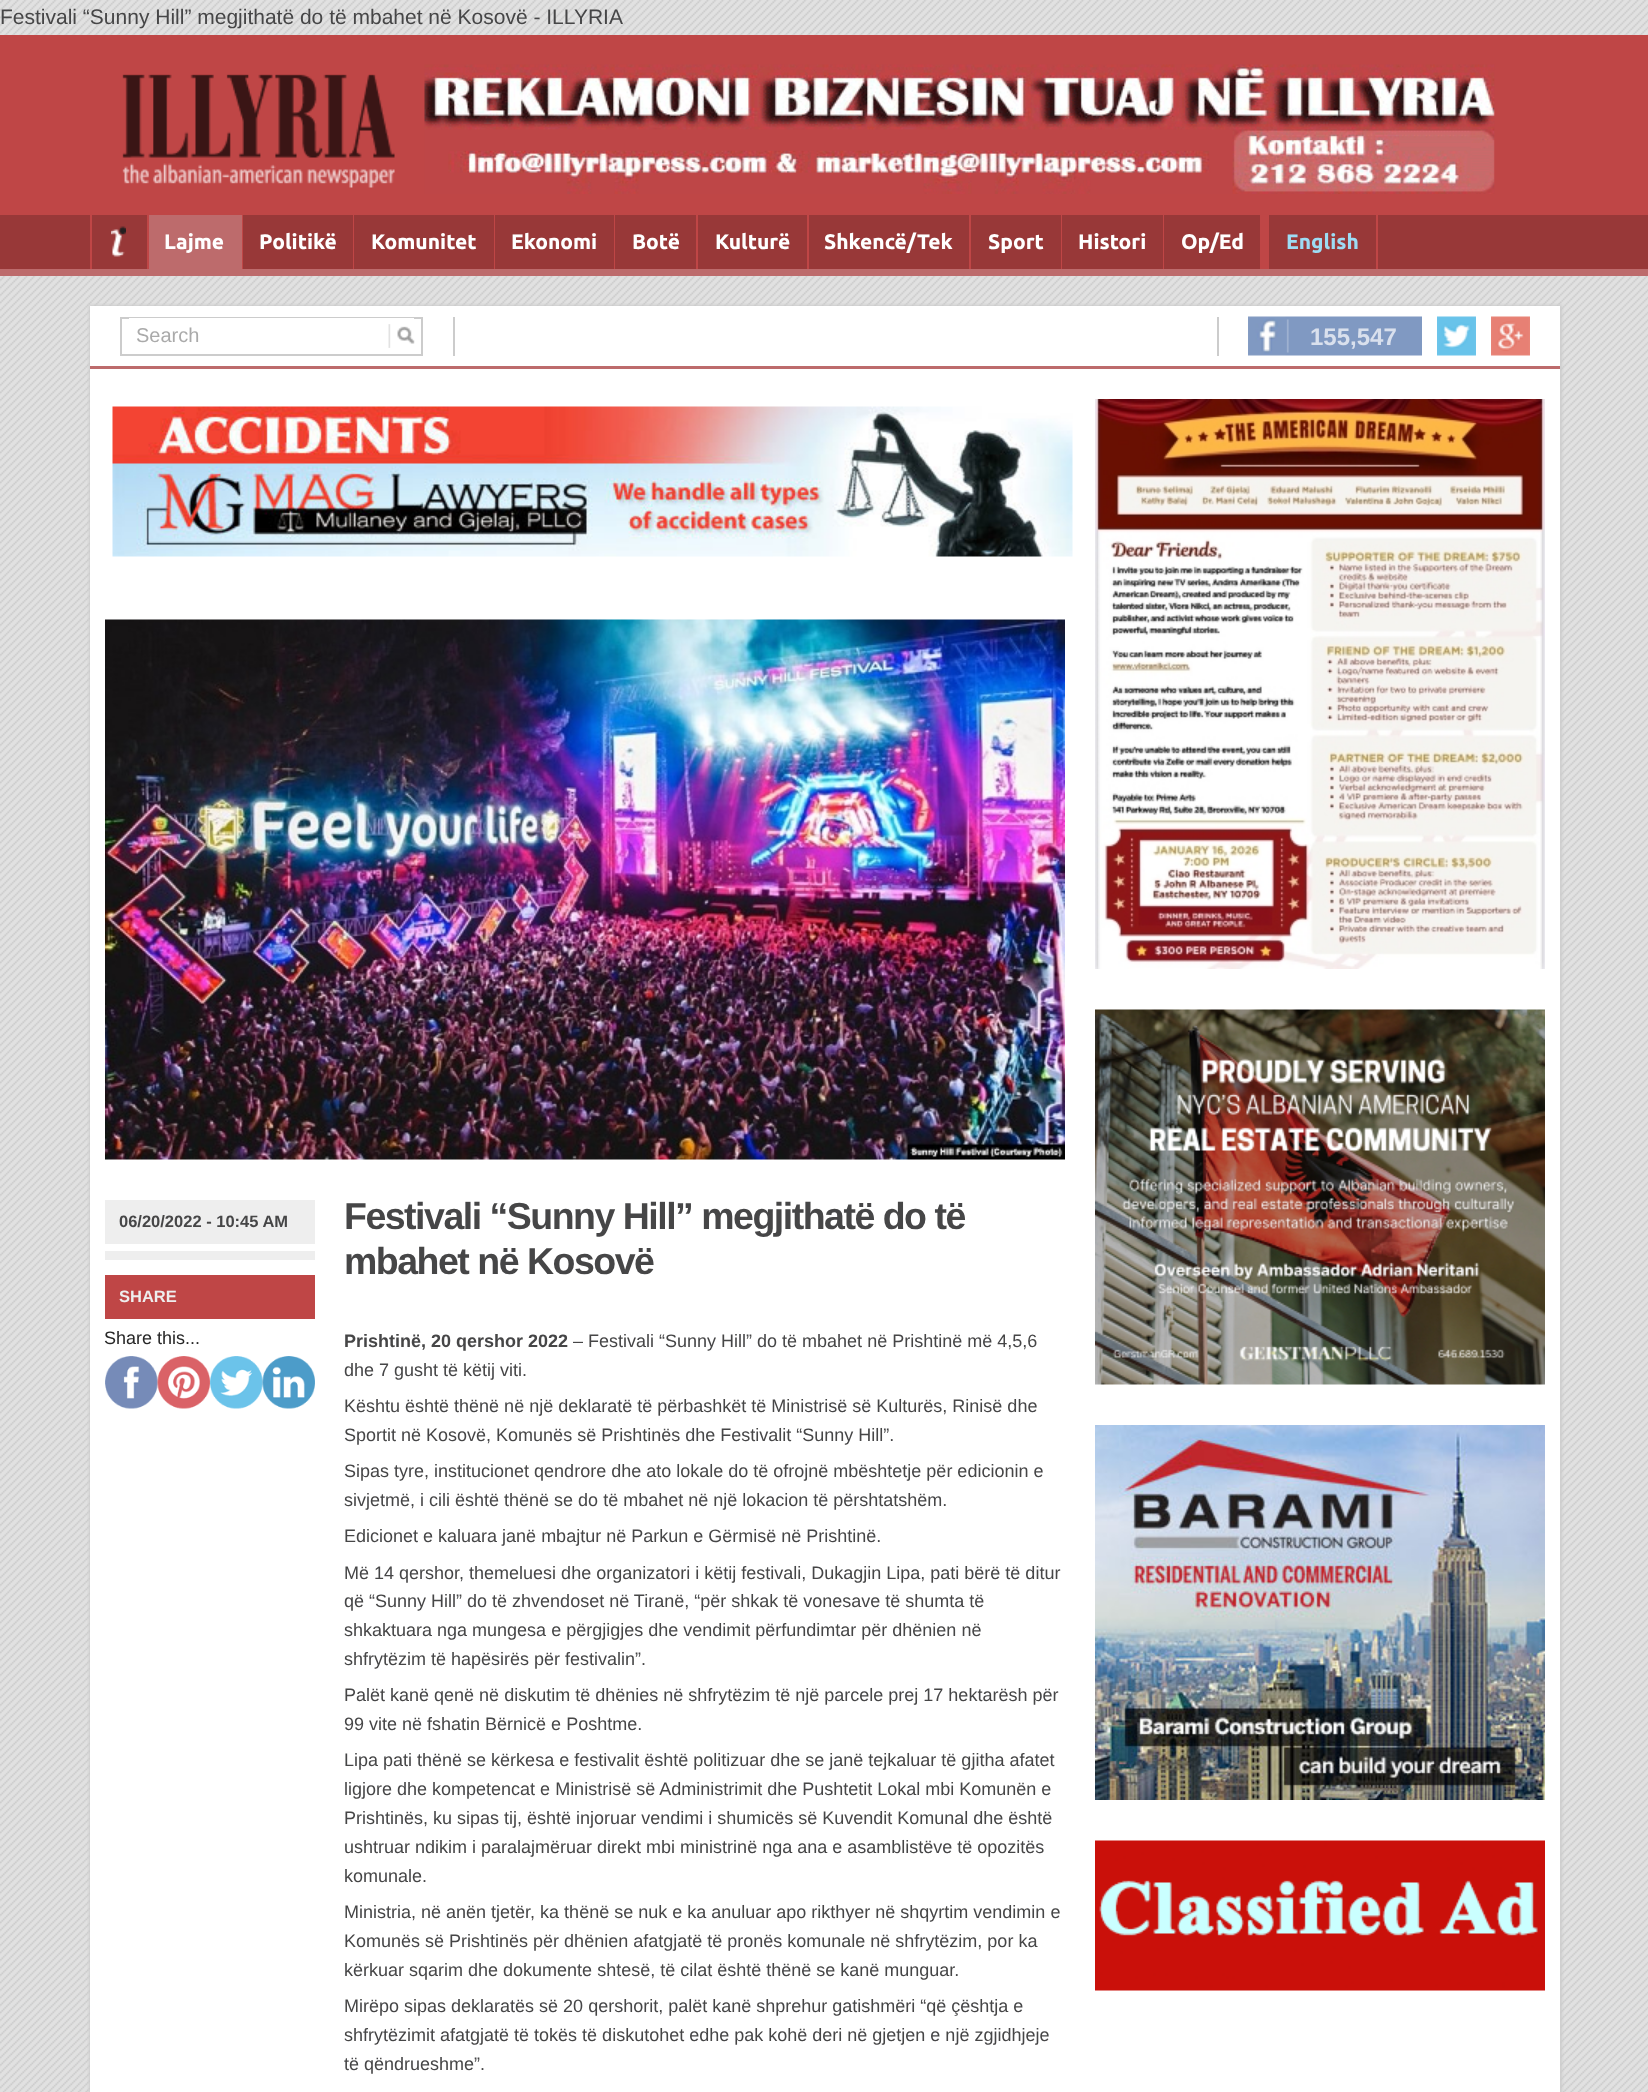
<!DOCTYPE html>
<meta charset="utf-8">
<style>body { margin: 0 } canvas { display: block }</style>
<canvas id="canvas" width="1648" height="2092"></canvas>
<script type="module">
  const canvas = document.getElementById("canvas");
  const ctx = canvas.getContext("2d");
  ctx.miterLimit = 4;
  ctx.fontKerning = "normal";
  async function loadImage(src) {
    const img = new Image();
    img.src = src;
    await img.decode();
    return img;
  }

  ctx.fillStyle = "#ffffff";
  ctx.fillRect(0, 0, 1648, 2092);
  ctx.drawImage(await loadImage("img1.png"), 0, 0, 1648, 2092);
  ctx.font = "21px Liberation Sans";
  ctx.fillStyle = "#464647";
  ctx.fillText("Festivali “Sunny Hill” megjithatë do të mbahet në Kosovë - ILLYRIA", 0, 24);
  ctx.fillStyle = "#bf4646";
  ctx.fillRect(0, 35, 1648, 180);
  ctx.drawImage(await loadImage("img2.png"), 122, 74, 273, 114);
  ctx.drawImage(await loadImage("img3.png"), 424, 64, 1071, 130);
  ctx.fillStyle = "#983838";
  ctx.fillRect(0, 215, 1648, 54);
  ctx.fillStyle = "#bd6b6c";
  ctx.fillRect(0, 269, 1648, 7);
  ctx.drawImage(await loadImage("img4.png"), 111, 226, 15, 31);
  ctx.fillStyle = "#bf4646";
  ctx.fillRect(147, 215, 2, 54);
  ctx.fillRect(90, 215, 2, 54);
  ctx.fillStyle = "#bd6b6c";
  ctx.fillRect(149, 215, 93, 54);
  ctx.fillStyle = "#bf4646";
  ctx.fillRect(242, 215, 1, 54);
  ctx.font = "bold 21px Ubuntu";
  ctx.fillStyle = "#ffffff";
  ctx.fillText("Lajme", 164, 249);
  ctx.fillStyle = "#bf4646";
  ctx.fillRect(353, 215, 1, 54);
  ctx.fillStyle = "#ffffff";
  ctx.fillText("Politikë", 259, 249);
  ctx.fillStyle = "#bf4646";
  ctx.fillRect(494, 215, 1, 54);
  ctx.fillStyle = "#ffffff";
  ctx.fillText("Komunitet", 371, 249);
  ctx.fillStyle = "#bf4646";
  ctx.fillRect(614, 215, 1, 54);
  ctx.fillStyle = "#ffffff";
  ctx.fillText("Ekonomi", 511, 249);
  ctx.fillStyle = "#bf4646";
  ctx.fillRect(696, 215, 2, 54);
  ctx.fillStyle = "#ffffff";
  ctx.fillText("Botë", 632, 249);
  ctx.fillStyle = "#bf4646";
  ctx.fillRect(807, 215, 2, 54);
  ctx.fillStyle = "#ffffff";
  ctx.fillText("Kulturë", 715, 249);
  ctx.fillStyle = "#bf4646";
  ctx.fillRect(969, 215, 2, 54);
  ctx.fillStyle = "#ffffff";
  ctx.fillText("Shkencë/Tek", 824, 249);
  ctx.fillStyle = "#bf4646";
  ctx.fillRect(1061, 215, 1, 54);
  ctx.fillStyle = "#ffffff";
  ctx.fillText("Sport", 988, 249);
  ctx.fillStyle = "#bf4646";
  ctx.fillRect(1163, 215, 1, 54);
  ctx.fillStyle = "#ffffff";
  ctx.fillText("Histori", 1078, 249);
  ctx.fillStyle = "#bf4646";
  ctx.fillRect(1260, 215, 9, 54);
  ctx.fillStyle = "#ffffff";
  ctx.fillText("Op/Ed", 1181, 249);
  ctx.fillStyle = "#bf4646";
  ctx.fillRect(1376, 215, 2, 54);
  ctx.fillStyle = "#9ddcf4";
  ctx.fillText("English", 1286, 249);
  ctx.fillStyle = "#cccccc";
  ctx.filter = "blur(1.5px)";
  ctx.beginPath();
  ctx.rect(89, 305, 1473, 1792);
  ctx.fill();
  ctx.filter = "none";
  ctx.fillStyle = "#ffffff";
  ctx.fillRect(90, 306, 1470, 1786);
  ctx.fillStyle = "#bd6b6c";
  ctx.fillRect(90, 366, 1470, 3);
  ctx.strokeStyle = "#cccccc";
  ctx.lineWidth = 2;
  ctx.strokeRect(121, 318, 301, 37);
  ctx.fillStyle = "#ffffff";
  ctx.fillRect(129, 318, 285, 1);
  ctx.font = "20px Liberation Sans";
  ctx.fillStyle = "#aaaaaa";
  ctx.fillText("Search", 136, 342);
  ctx.drawImage(await loadImage("img5.png"), 388, 324, 27, 24);
  ctx.fillStyle = "#cccccc";
  ctx.fillRect(1217, 317, 2, 39);
  ctx.fillRect(453, 317, 2, 39);
  ctx.drawImage(await loadImage("img6.png"), 1248, 316, 174, 40);
  ctx.font = "bold 24px Liberation Sans";
  ctx.fillStyle = "#d9e0ed";
  ctx.fillText("155,547", 1310, 345);
  ctx.drawImage(await loadImage("img7.png"), 1437, 316, 39, 40);
  ctx.drawImage(await loadImage("img8.png"), 1491, 316, 39, 40);
  ctx.drawImage(await loadImage("img9.png"), 112, 406, 961, 151);
  ctx.fillStyle = "#fafafa";
  ctx.fillRect(105, 1159, 960, 1);
  ctx.drawImage(await loadImage("img10.png"), 105, 619, 960, 541);
  ctx.fillStyle = "#eeeeee";
  ctx.fillRect(105, 1200, 210, 44);
  ctx.font = "bold 16.5px Liberation Sans";
  ctx.fillStyle = "#464647";
  ctx.fillText("06/20/2022 - 10:45 AM", 119, 1227);
  ctx.fillStyle = "#eeeeee";
  ctx.fillRect(105, 1251, 210, 9);
  ctx.fillStyle = "#bf4646";
  ctx.fillRect(105, 1275, 210, 44);
  ctx.fillStyle = "#eeeeee";
  ctx.fillText("SHARE", 119, 1302);
  ctx.font = "18px Liberation Sans";
  ctx.fillStyle = "#272727";
  ctx.fillText("Share this...", 104, 1344);
  ctx.drawImage(await loadImage("img11.png"), 105, 1356, 53, 53);
  ctx.drawImage(await loadImage("img12.png"), 157, 1356, 53, 53);
  ctx.drawImage(await loadImage("img13.png"), 210, 1356, 53, 53);
  ctx.drawImage(await loadImage("img14.png"), 262, 1356, 53, 53);
  ctx.letterSpacing = "-1.5px";
  ctx.font = "bold 37.5px Liberation Sans";
  ctx.fillStyle = "#464647";
  ctx.fillText("Festivali “Sunny Hill” megjithatë do të", 344, 1229);
  ctx.fillText("mbahet në Kosovë", 344, 1274);
  ctx.letterSpacing = "0px";
  ctx.font = "bold 18px Liberation Sans";
  ctx.fillText("Prishtinë, 20 qershor 2022", 344, 1347);
  ctx.font = "18px Liberation Sans";
  ctx.fillText("– Festivali “Sunny Hill” do të mbahet në Prishtinë më 4,5,6", 573, 1347);
  ctx.fillText("dhe 7 gusht të këtij viti.", 344, 1376);
  ctx.fillText("Kështu është thënë në një deklaratë të përbashkët të Ministrisë së Kulturës, Rinisë dhe", 344, 1412);
  ctx.fillText("Sportit në Kosovë, Komunës së Prishtinës dhe Festivalit “Sunny Hill”.", 344, 1441);
  ctx.fillText("Sipas tyre, institucionet qendrore dhe ato lokale do të ofrojnë mbështetje për edicionin e", 344, 1477);
  ctx.fillText("sivjetmë, i cili është thënë se do të mbahet në një lokacion të përshtatshëm.", 344, 1506);
  ctx.fillText("Edicionet e kaluara janë mbajtur në Parkun e Gërmisë në Prishtinë.", 344, 1542);
  ctx.fillText("Më 14 qershor, themeluesi dhe organizatori i këtij festivali, Dukagjin Lipa, pati bërë të ditur", 344, 1579);
  ctx.fillText("që “Sunny Hill” do të zhvendoset në Tiranë, “për shkak të vonesave të shumta të", 344, 1607);
  ctx.fillText("shkaktuara nga mungesa e përgjigjes dhe vendimit përfundimtar për dhënien në", 344, 1636);
  ctx.fillText("shfrytëzim të hapësirës për festivalin”.", 344, 1665);
  ctx.fillText("Palët kanë qenë në diskutim të dhënies në shfrytëzim të një parcele prej 17 hektarësh për", 344, 1701);
  ctx.fillText("99 vite në fshatin Bërnicë e Poshtme.", 344, 1730);
  ctx.fillText("Lipa pati thënë se kërkesa e festivalit është politizuar dhe se janë tejkaluar të gjitha afatet", 344, 1766);
  ctx.fillText("ligjore dhe kompetencat e Ministrisë së Administrimit dhe Pushtetit Lokal mbi Komunën e", 344, 1795);
  ctx.fillText("Prishtinës, ku sipas tij, është injoruar vendimi i shumicës së Kuvendit Komunal dhe është", 344, 1824);
  ctx.fillText("ushtruar ndikim i paralajmëruar direkt mbi ministrinë nga ana e asamblistëve të opozitës", 344, 1853);
  ctx.fillText("komunale.", 344, 1882);
  ctx.fillText("Ministria, në anën tjetër, ka thënë se nuk e ka anuluar apo rikthyer në shqyrtim vendimin e", 344, 1918);
  ctx.fillText("Komunës së Prishtinës për dhënien afatgjatë të pronës komunale në shfrytëzim, por ka", 344, 1947);
  ctx.fillText("kërkuar sqarim dhe dokumente shtesë, të cilat është thënë se kanë munguar.", 344, 1976);
  ctx.fillText("Mirëpo sipas deklaratës së 20 qershorit, palët kanë shprehur gatishmëri “që çështja e", 344, 2012);
  ctx.fillText("shfrytëzimit afatgjatë të tokës të diskutohet edhe pak kohë deri në gjetjen e një zgjidhjeje", 344, 2041);
  ctx.fillText("të qëndrueshme”.", 344, 2070);
  ctx.drawImage(await loadImage("img15.png"), 1095, 399, 450, 570);
  ctx.drawImage(await loadImage("img16.png"), 1095, 1009, 450, 376);
  ctx.drawImage(await loadImage("img17.png"), 1095, 1425, 450, 375);
  ctx.drawImage(await loadImage("img18.png"), 1095, 1840, 450, 151);
</script>
